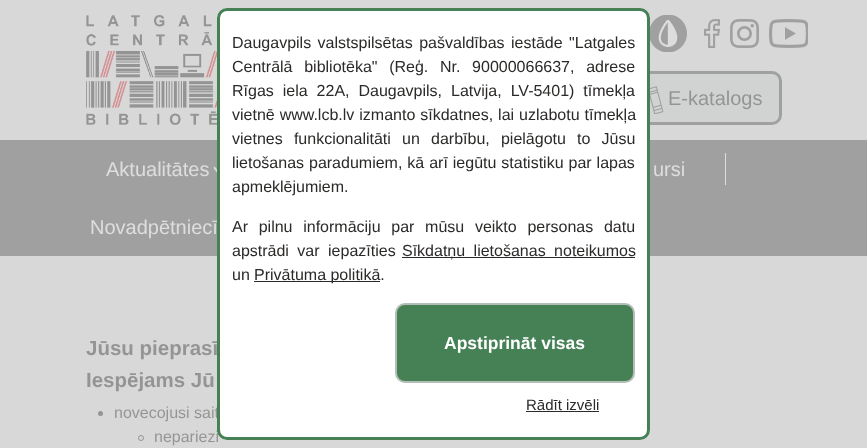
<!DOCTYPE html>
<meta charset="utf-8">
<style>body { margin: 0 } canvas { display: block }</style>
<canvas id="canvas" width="867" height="448"></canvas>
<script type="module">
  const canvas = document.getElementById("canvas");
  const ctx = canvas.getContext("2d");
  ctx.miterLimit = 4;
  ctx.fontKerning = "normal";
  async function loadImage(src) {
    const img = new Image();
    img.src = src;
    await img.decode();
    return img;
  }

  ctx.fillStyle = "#f2f0f2";
  ctx.fillRect(0, 0, 867, 448);
  ctx.drawImage(await loadImage("img1.png"), 86, 15, 131, 110);
  ctx.drawImage(await loadImage("img2.png"), 650, 15, 37, 37);
  ctx.drawImage(await loadImage("img3.png"), 704, 19, 16, 29);
  ctx.drawImage(await loadImage("img4.png"), 730, 19, 29, 29);
  ctx.drawImage(await loadImage("img5.png"), 769, 19, 39, 29);
  ctx.fillStyle = "#d8e2dc";
  ctx.beginPath();
  ctx.roundRect(613.5, 72.5, 167, 51, 8.5);
  ctx.fill();
  ctx.strokeStyle = "#4e4e4e";
  ctx.lineWidth = 3;
  ctx.stroke();
  ctx.drawImage(await loadImage("img6.png"), 650, 86, 14, 28);
  ctx.font = "20px Liberation Sans";
  ctx.fillStyle = "#2b2a29";
  ctx.fillText("E-katalogs", 668, 105);
  ctx.fillStyle = "#4e4e4e";
  ctx.fillRect(0, 140, 867, 116);
  ctx.fillStyle = "#ffffff";
  ctx.fillText("Aktualitātes", 106, 176);
  ctx.beginPath();
  ctx.moveTo(214.5, 166.5);
  ctx.lineTo(221, 174);
  ctx.lineTo(219.5, 176);
  ctx.lineTo(213.5, 168);
  ctx.closePath();
  ctx.fill();
  ctx.fillText("ursi", 653, 176);
  ctx.fillRect(725, 153, 1, 32);
  ctx.fillText("Novadpētniecī", 90, 234);
  ctx.font = "bold 20.5px Liberation Sans";
  ctx.fillStyle = "#2b2a29";
  ctx.fillText("Jūsu pieprasī", 86, 355);
  ctx.fillText("Iespējams Jū", 86, 387);
  ctx.beginPath();
  ctx.arc(100.5, 413.5, 2.5, 0, Math.PI * 2);
  ctx.fill();
  ctx.font = "16px Liberation Sans";
  ctx.fillText("novecojusi sait", 114, 418);
  ctx.beginPath();
  ctx.arc(141, 438, 2.5, 0, Math.PI * 2);
  ctx.strokeStyle = "#2b2a29";
  ctx.lineWidth = 1;
  ctx.stroke();
  ctx.fillText("nepariezi", 154, 442);
  ctx.beginPath();
  ctx.roundRect(-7, -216, 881, 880, 234);
  ctx.strokeStyle = "rgba(204, 204, 204, 0.66)";
  ctx.lineWidth = 448;
  ctx.stroke();
  ctx.fillStyle = "#ffffff";
  ctx.beginPath();
  ctx.roundRect(218.5, 9.5, 430, 429, 8.5);
  ctx.fill();
  ctx.strokeStyle = "#458155";
  ctx.lineWidth = 3;
  ctx.stroke();
  ctx.wordSpacing = "2px";
  ctx.fillStyle = "#2b2a29";
  ctx.fillText("Daugavpils valstspilsētas pašvaldības iestāde \"Latgales", 232, 48);
  ctx.wordSpacing = "7.25px";
  ctx.fillText("Centrālā bibliotēka\" (Reģ. Nr. 90000066637, adrese", 232, 72);
  ctx.wordSpacing = "4.5px";
  ctx.fillText("Rīgas iela 22A, Daugavpils, Latvija, LV-5401) tīmekļa", 232, 96);
  ctx.wordSpacing = "0.5px";
  ctx.fillText("vietnē www.lcb.lv izmanto sīkdatnes, lai uzlabotu tīmekļa", 232, 120);
  ctx.wordSpacing = "6.75px";
  ctx.fillText("vietnes funkcionalitāti un darbību, pielāgotu to Jūsu", 232, 144);
  ctx.wordSpacing = "0.5px";
  ctx.fillText("lietošanas paradumiem, kā arī iegūtu statistiku par lapas", 232, 168);
  ctx.wordSpacing = "0px";
  ctx.fillText("apmeklējumiem.", 232, 192);
  ctx.wordSpacing = "6.25px";
  ctx.fillText("Ar pilnu informāciju par mūsu veikto personas datu", 232, 232);
  ctx.wordSpacing = "4px";
  ctx.fillText("apstrādi var iepazīties", 232, 256);
  ctx.fillRect(402, 257, 233, 1);
  ctx.fillText("Sīkdatņu lietošanas noteikumos", 402, 256);
  ctx.wordSpacing = "0px";
  ctx.fillText("un", 232, 280);
  ctx.fillRect(254, 281, 126, 1);
  ctx.fillText("Privātuma politikā.", 254, 280);
  ctx.fillStyle = "#458155";
  ctx.beginPath();
  ctx.roundRect(396, 304, 238, 78, 9);
  ctx.fill();
  ctx.strokeStyle = "#b2beb7";
  ctx.lineWidth = 2;
  ctx.stroke();
  ctx.font = "bold 17.5px Liberation Sans";
  ctx.fillStyle = "#ffffff";
  ctx.fillText("Apstiprināt visas", 444, 349);
  ctx.font = "15px Liberation Sans";
  ctx.fillStyle = "#2b2a29";
  ctx.fillText("Rādīt izvēli", 526, 410);
  ctx.fillRect(526, 411, 73, 1);
</script>
